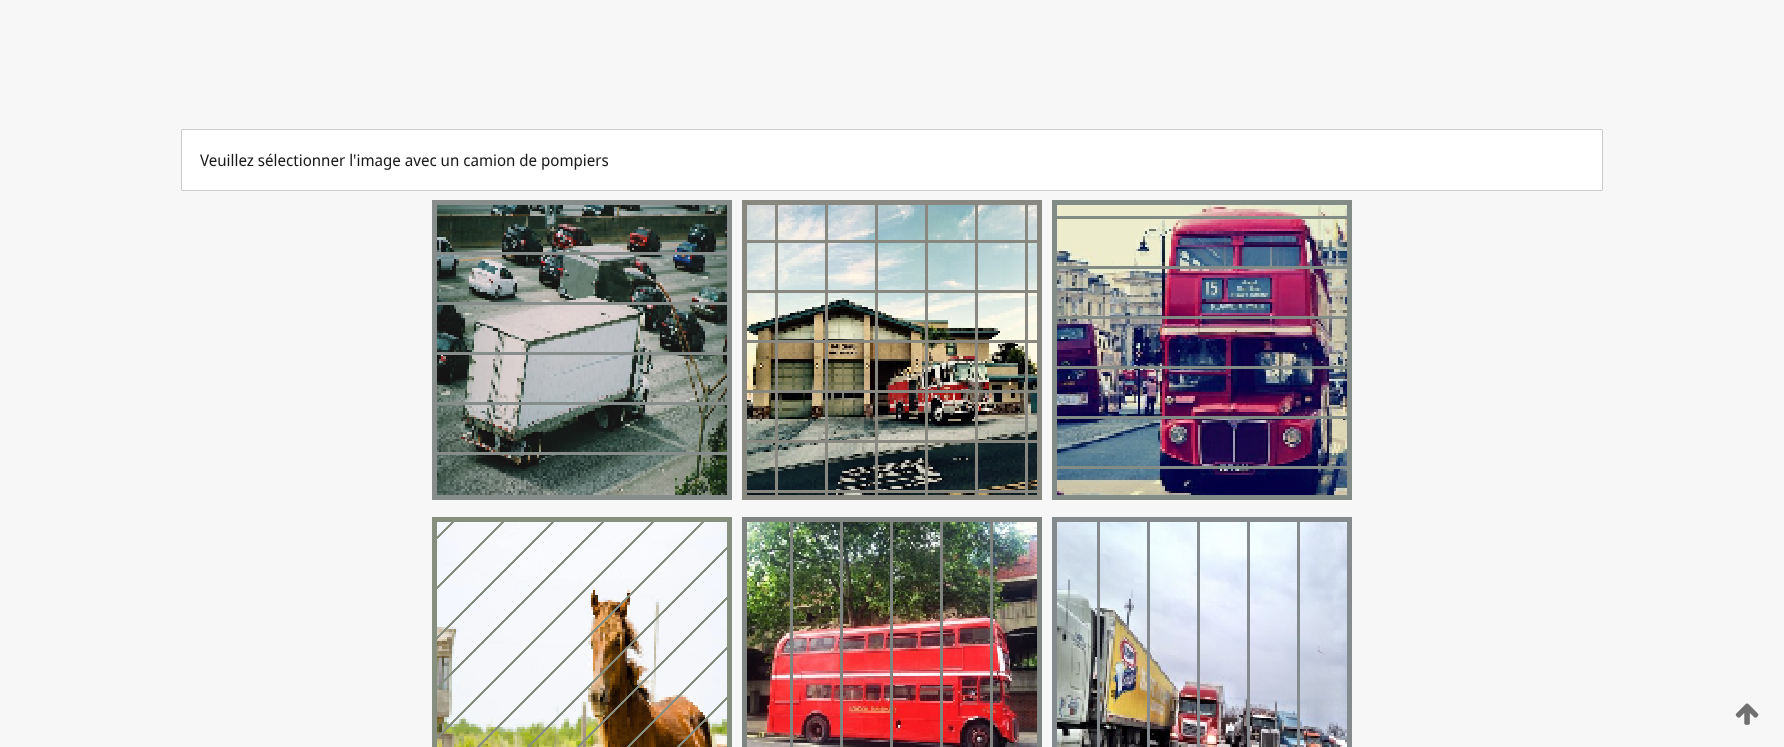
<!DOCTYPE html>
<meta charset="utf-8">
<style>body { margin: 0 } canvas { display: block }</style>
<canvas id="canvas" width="1784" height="747"></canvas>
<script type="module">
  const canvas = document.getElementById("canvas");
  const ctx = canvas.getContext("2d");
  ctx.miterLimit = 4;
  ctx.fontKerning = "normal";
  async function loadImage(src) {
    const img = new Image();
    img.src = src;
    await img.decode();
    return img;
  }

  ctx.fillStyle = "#f7f7f7";
  ctx.fillRect(0, 0, 1784, 747);
  ctx.fillStyle = "#ffffff";
  ctx.beginPath();
  ctx.rect(181.5, 129.5, 1421, 61);
  ctx.fill();
  ctx.strokeStyle = "#cccccc";
  ctx.stroke();
  ctx.font = "16px Noto Sans Display";
  ctx.fillStyle = "#1a1a1a";
  ctx.fillText("Veuillez sélectionner l'image avec un camion de pompiers", 200, 166);
  ctx.drawImage(await loadImage("img1.png"), 432, 200, 300, 300);
  ctx.drawImage(await loadImage("img2.png"), 742, 200, 300, 300);
  ctx.drawImage(await loadImage("img3.png"), 1052, 200, 300, 300);
  ctx.drawImage(await loadImage("img4.png"), 432, 517, 300, 230);
  ctx.drawImage(await loadImage("img5.png"), 742, 517, 300, 230);
  ctx.drawImage(await loadImage("img6.png"), 1052, 517, 300, 230);
  ctx.drawImage(await loadImage("img7.png"), 1735, 703, 24, 22);
</script>
